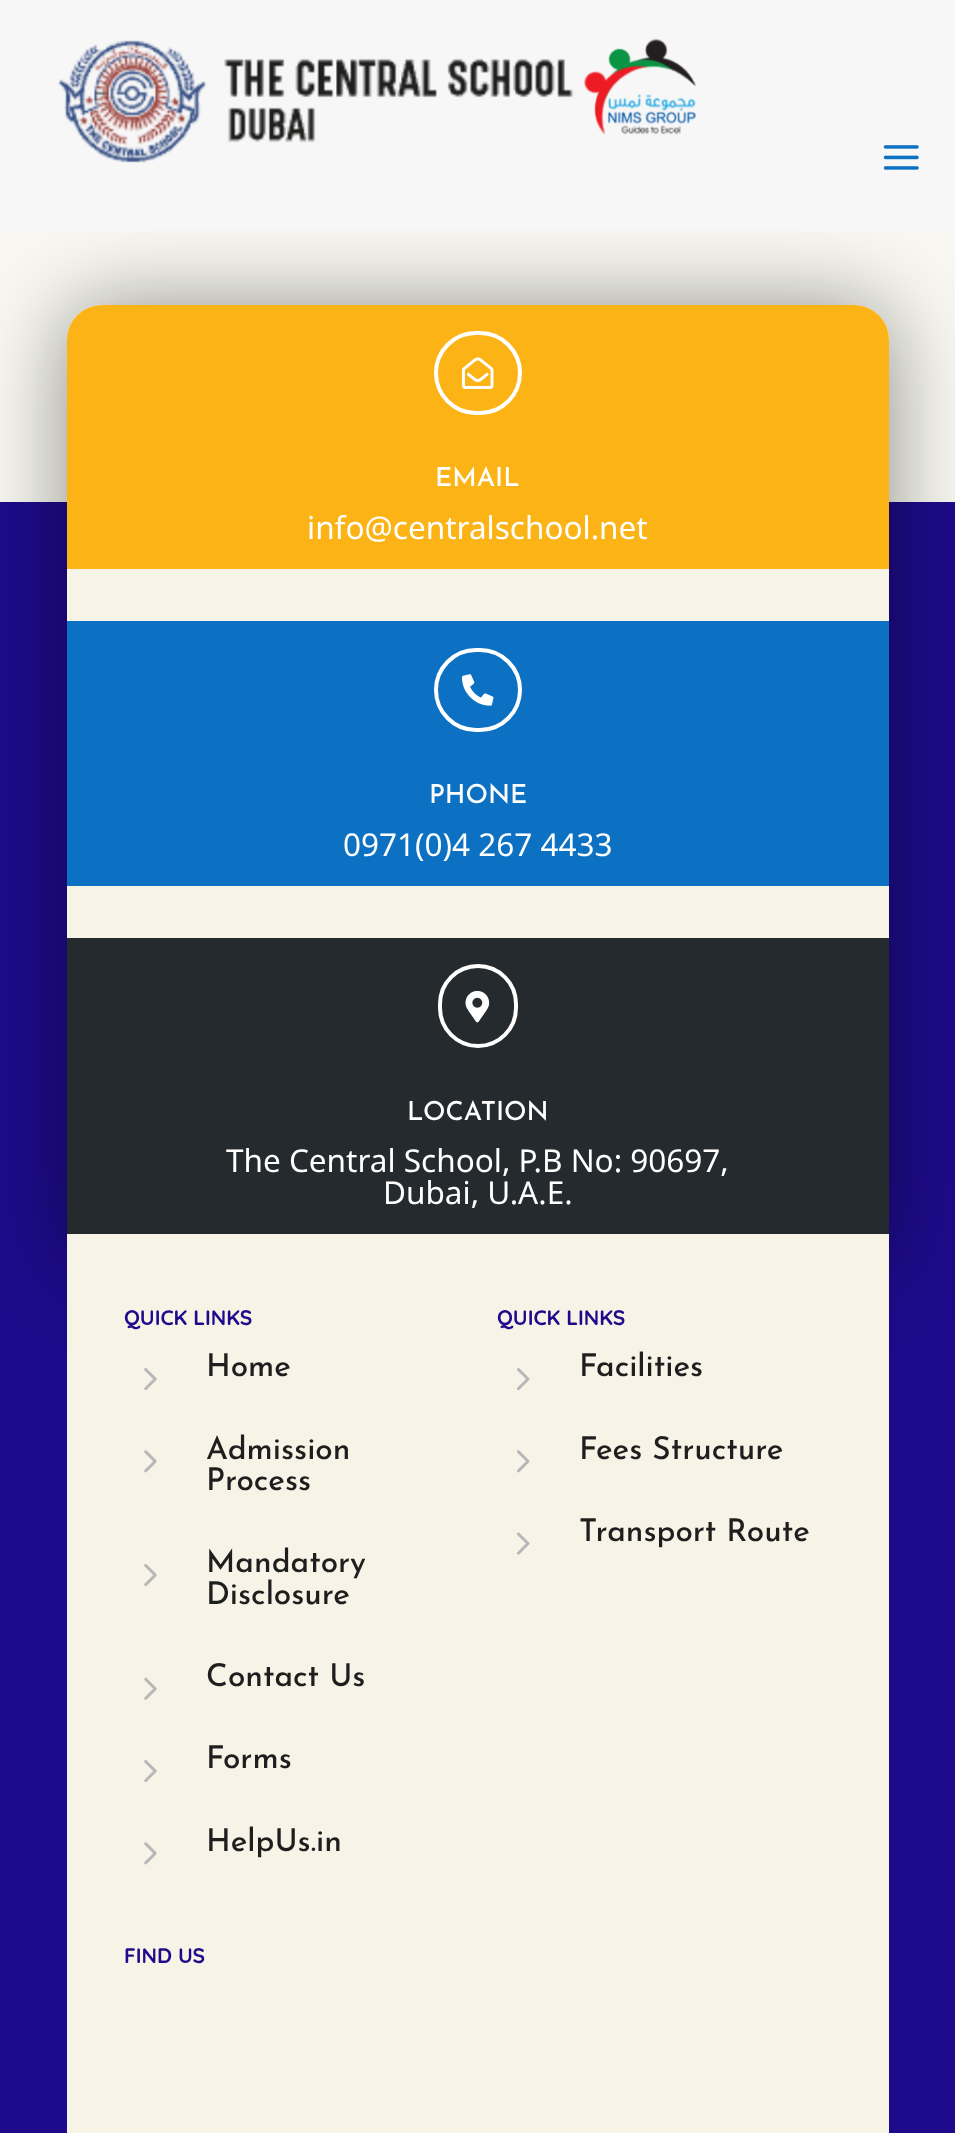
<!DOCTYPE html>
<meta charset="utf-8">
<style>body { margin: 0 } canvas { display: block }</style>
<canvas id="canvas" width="955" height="2133"></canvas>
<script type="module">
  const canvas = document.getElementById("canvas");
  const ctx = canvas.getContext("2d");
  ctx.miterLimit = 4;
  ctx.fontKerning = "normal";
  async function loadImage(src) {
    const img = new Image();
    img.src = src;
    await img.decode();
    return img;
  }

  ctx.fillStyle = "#1e0b8b";
  ctx.fillRect(0, 0, 955, 2133);
  ctx.fillStyle = "#f8f7f1";
  ctx.fillRect(0, 231, 955, 271);
  ctx.fillStyle = "rgba(0, 0, 0, 0.44)";
  ctx.filter = "blur(44px)";
  ctx.beginPath();
  ctx.roundRect(67, 308, 822, 959, 35);
  ctx.fill();
  ctx.filter = "none";
  ctx.fillStyle = "#f7f7f7";
  ctx.fillRect(0, 0, 955, 231);
  ctx.drawImage(await loadImage("img1.png"), 57, 38, 639, 125);
  ctx.drawImage(await loadImage("img2.png"), 883, 145, 36, 25);
  ctx.fillStyle = "#f7f3e6";
  ctx.beginPath();
  ctx.roundRect(67, 305, 822, 959, [35, 35, 0, 0]);
  ctx.fill();
  ctx.fillStyle = "#fcb316";
  ctx.beginPath();
  ctx.roundRect(67, 305, 822, 264, [35, 35, 0, 0]);
  ctx.fill();
  ctx.beginPath();
  ctx.roundRect(436, 333, 84, 80, 40);
  ctx.strokeStyle = "#ffffff";
  ctx.lineWidth = 4;
  ctx.stroke();
  ctx.drawImage(await loadImage("img3.png"), 462, 357, 32, 32);
  ctx.font = "100 26.25px Josefin Sans";
  ctx.fillStyle = "#ffffff";
  ctx.fillText("EMAIL", 435, 486);
  ctx.font = "31.5px Noto Sans";
  ctx.fillText("info@centralschool.net", 307, 539);
  ctx.fillStyle = "#0c71c3";
  ctx.fillRect(67, 621, 822, 265);
  ctx.beginPath();
  ctx.roundRect(436, 650, 84, 80, 40);
  ctx.stroke();
  ctx.drawImage(await loadImage("img4.png"), 462, 674, 32, 32);
  ctx.font = "100 26.25px Josefin Sans";
  ctx.fillStyle = "#ffffff";
  ctx.fillText("PHONE", 429, 803);
  ctx.font = "31.5px Noto Sans";
  ctx.fillText("0971(0)4 267 4433", 343, 856);
  ctx.fillStyle = "#252a2e";
  ctx.fillRect(67, 938, 822, 296);
  ctx.beginPath();
  ctx.roundRect(440, 966, 76, 80, 38);
  ctx.stroke();
  ctx.drawImage(await loadImage("img5.png"), 465, 990, 25, 33);
  ctx.font = "100 26.25px Josefin Sans";
  ctx.fillStyle = "#ffffff";
  ctx.fillText("LOCATION", 407, 1120);
  ctx.font = "31.5px Noto Sans";
  ctx.fillText("The Central School, P.B No: 90697,", 226, 1172);
  ctx.fillText("Dubai, U.A.E.", 383, 1204);
  ctx.fillStyle = "#f7f3e6";
  ctx.fillRect(67, 1264, 822, 869);
  ctx.font = "300 21px Quicksand";
  ctx.fillStyle = "#1e0b8b";
  ctx.fillText("QUICK LINKS", 124, 1325);
  ctx.font = "100 31.5px Josefin Sans";
  ctx.fillStyle = "#1e1e1e";
  ctx.fillText("Home", 206, 1376);
  ctx.drawImage(await loadImage("img6.png"), 144, 1368, 13, 23);
  ctx.drawImage(await loadImage("img7.png"), 144, 1450, 13, 23);
  ctx.fillText("Admission", 206, 1459);
  ctx.fillText("Process", 206, 1490);
  ctx.drawImage(await loadImage("img6.png"), 144, 1564, 13, 23);
  ctx.fillText("Mandatory", 206, 1572);
  ctx.fillText("Disclosure", 206, 1604);
  ctx.drawImage(await loadImage("img8.png"), 144, 1677, 13, 23);
  ctx.fillText("Contact Us", 206, 1686);
  ctx.fillText("Forms", 206, 1768);
  ctx.drawImage(await loadImage("img6.png"), 144, 1760, 13, 23);
  ctx.drawImage(await loadImage("img7.png"), 144, 1842, 13, 23);
  ctx.fillText("HelpUs.in", 206, 1851);
  ctx.font = "300 21px Quicksand";
  ctx.fillStyle = "#1e0b8b";
  ctx.fillText("QUICK LINKS", 497, 1325);
  ctx.font = "100 31.5px Josefin Sans";
  ctx.fillStyle = "#1e1e1e";
  ctx.fillText("Facilities", 579, 1376);
  ctx.drawImage(await loadImage("img9.png"), 517, 1368, 13, 23);
  ctx.drawImage(await loadImage("img10.png"), 517, 1450, 13, 23);
  ctx.fillText("Fees Structure", 579, 1459);
  ctx.drawImage(await loadImage("img11.png"), 517, 1532, 13, 23);
  ctx.fillText("Transport Route", 579, 1541);
  ctx.font = "300 21px Quicksand";
  ctx.fillStyle = "#1e0b8b";
  ctx.fillText("FIND US", 124, 1963);
</script>
